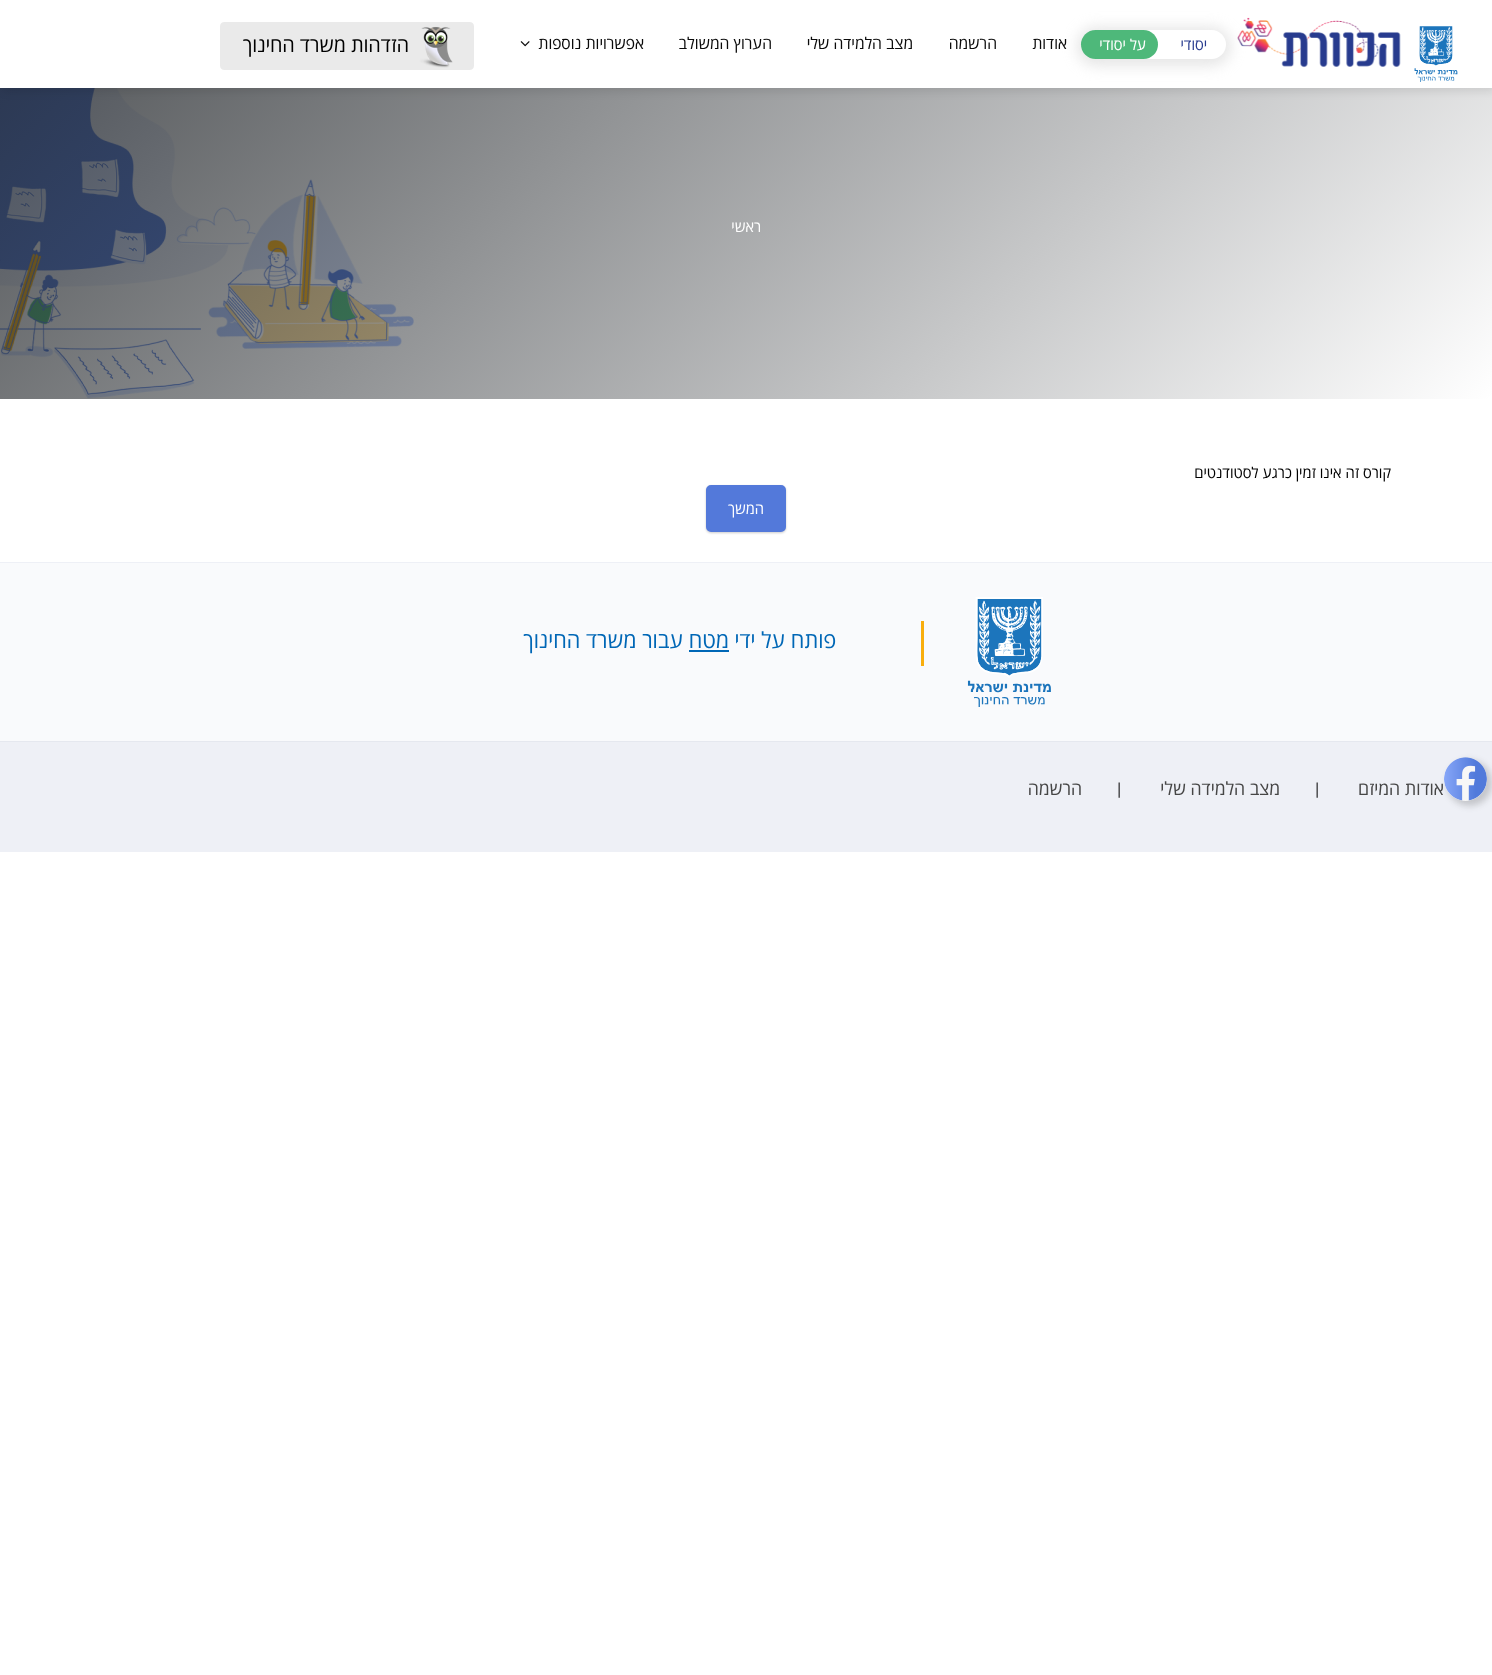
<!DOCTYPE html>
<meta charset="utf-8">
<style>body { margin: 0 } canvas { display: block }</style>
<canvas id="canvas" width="1492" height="1675"></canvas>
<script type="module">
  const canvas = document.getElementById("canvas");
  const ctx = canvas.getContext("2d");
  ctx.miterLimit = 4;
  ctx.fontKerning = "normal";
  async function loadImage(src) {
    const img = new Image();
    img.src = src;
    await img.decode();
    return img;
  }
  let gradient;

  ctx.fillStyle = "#ffffff";
  ctx.fillRect(0, 0, 1492, 1675);
  ctx.drawImage(await loadImage("img5.png"), 0, 88, 414, 311);
  gradient = ctx.createLinearGradient(1219, 672, 273, -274);
  gradient.addColorStop(0, "rgba(33, 37, 41, 0)");
  gradient.addColorStop(1, "rgba(33, 37, 41, 0.8)");
  ctx.fillStyle = gradient;
  ctx.fillRect(0, 88, 1492, 311);
  ctx.fillStyle = "rgba(0, 0, 0, 0.1)";
  ctx.filter = "blur(5px)";
  ctx.beginPath();
  ctx.rect(3, 3, 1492, 88);
  ctx.fill();
  ctx.filter = "none";
  ctx.fillStyle = "#ffffff";
  ctx.fillRect(0, 0, 1492, 88);
  ctx.drawImage(await loadImage("img1.png"), 1414, 26, 44, 56);
  ctx.drawImage(await loadImage("img2.png"), 1237, 17, 164, 51);
  ctx.fillStyle = "rgba(206, 206, 206, 0.5)";
  ctx.filter = "blur(7px)";
  ctx.beginPath();
  ctx.roundRect(1077, 27, 154, 39, 19.5);
  ctx.fill();
  ctx.filter = "none";
  ctx.fillStyle = "#ffffff";
  ctx.beginPath();
  ctx.roundRect(1082, 30, 144, 29, 14.5);
  ctx.fill();
  ctx.fillStyle = "#4eb87a";
  ctx.beginPath();
  ctx.roundRect(1081, 30, 77, 29, 14.5);
  ctx.fill();
  ctx.direction = "rtl";
  ctx.font = "15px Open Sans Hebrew";
  ctx.fillStyle = "#273b8e";
  ctx.fillText("יסודי", 1207, 50);
  ctx.fillStyle = "#ffffff";
  ctx.fillText("על יסודי", 1146, 50);
  ctx.font = "16px Open Sans Hebrew";
  ctx.fillStyle = "#0a0a0a";
  ctx.fillText("אודות", 1067, 49);
  ctx.fillText("הרשמה", 997, 49);
  ctx.fillText("מצב הלמידה שלי", 913, 49);
  ctx.fillText("הערוץ המשולב", 772, 49);
  ctx.fillText("אפשרויות נוספות", 644, 49);
  ctx.drawImage(await loadImage("img3.png"), 520, 41, 10, 6);
  ctx.drawImage(await loadImage("img4.png"), 220, 22, 254, 48);
  ctx.font = "15px Open Sans Hebrew";
  ctx.fillStyle = "#ffffff";
  ctx.fillText("ראשי", 761, 232);
  ctx.fillStyle = "#000000";
  ctx.fillText("קורס זה אינו זמין כרגע לסטודנטים", 1391, 478);
  ctx.fillStyle = "rgba(0, 0, 0, 0.2)";
  ctx.filter = "blur(1px)";
  ctx.beginPath();
  ctx.roundRect(706, 486, 80, 47, 5);
  ctx.fill();
  ctx.filter = "none";
  ctx.fillStyle = "#5379da";
  ctx.beginPath();
  ctx.roundRect(707, 486, 78, 45, 4);
  ctx.fill();
  ctx.strokeStyle = "#5379da";
  ctx.lineWidth = 2;
  ctx.stroke();
  ctx.fillStyle = "#ffffff";
  ctx.fillText("המשך", 764, 514);
  ctx.fillStyle = "#f9fafc";
  ctx.fillRect(0, 563, 1492, 178);
  ctx.fillStyle = "#eef0f6";
  ctx.fillRect(0, 562, 1492, 1);
  ctx.drawImage(await loadImage("img6.png"), 967, 597, 84, 110);
  ctx.fillStyle = "#f9ae0d";
  ctx.fillRect(921, 621, 3, 45);
  ctx.font = "22px Open Sans Hebrew";
  ctx.fillStyle = "#0067b6";
  ctx.fillText("פותח על ידי", 836, 648);
  ctx.fillText("מטח", 729, 648);
  ctx.fillRect(689, 650, 40, 2);
  ctx.fillText("עבור משרד החינוך", 683, 648);
  ctx.fillStyle = "#eef0f6";
  ctx.fillRect(0, 742, 1492, 110);
  ctx.fillStyle = "#e5e8ef";
  ctx.fillRect(0, 741, 1492, 1);
  ctx.fillStyle = "rgba(33, 33, 33, 0.2)";
  ctx.filter = "blur(3px)";
  ctx.beginPath();
  ctx.roundRect(1447, 760, 45, 46, 22.5);
  ctx.fill();
  ctx.filter = "none";
  ctx.drawImage(await loadImage("img7.png"), 1444, 757, 43, 44);
  ctx.font = "18px Open Sans Hebrew";
  ctx.fillStyle = "#464646";
  ctx.fillText("אודות המיזם", 1444, 795);
  ctx.direction = "ltr";
  ctx.font = "15px Open Sans Hebrew";
  ctx.fillStyle = "#000000";
  ctx.fillText("|", 1313, 794);
  ctx.direction = "rtl";
  ctx.font = "18px Open Sans Hebrew";
  ctx.fillStyle = "#464646";
  ctx.fillText("מצב הלמידה שלי", 1280, 795);
  ctx.direction = "ltr";
  ctx.font = "15px Open Sans Hebrew";
  ctx.fillStyle = "#000000";
  ctx.fillText("|", 1115, 794);
  ctx.direction = "rtl";
  ctx.font = "18px Open Sans Hebrew";
  ctx.fillStyle = "#464646";
  ctx.fillText("הרשמה", 1082, 795);
</script>
